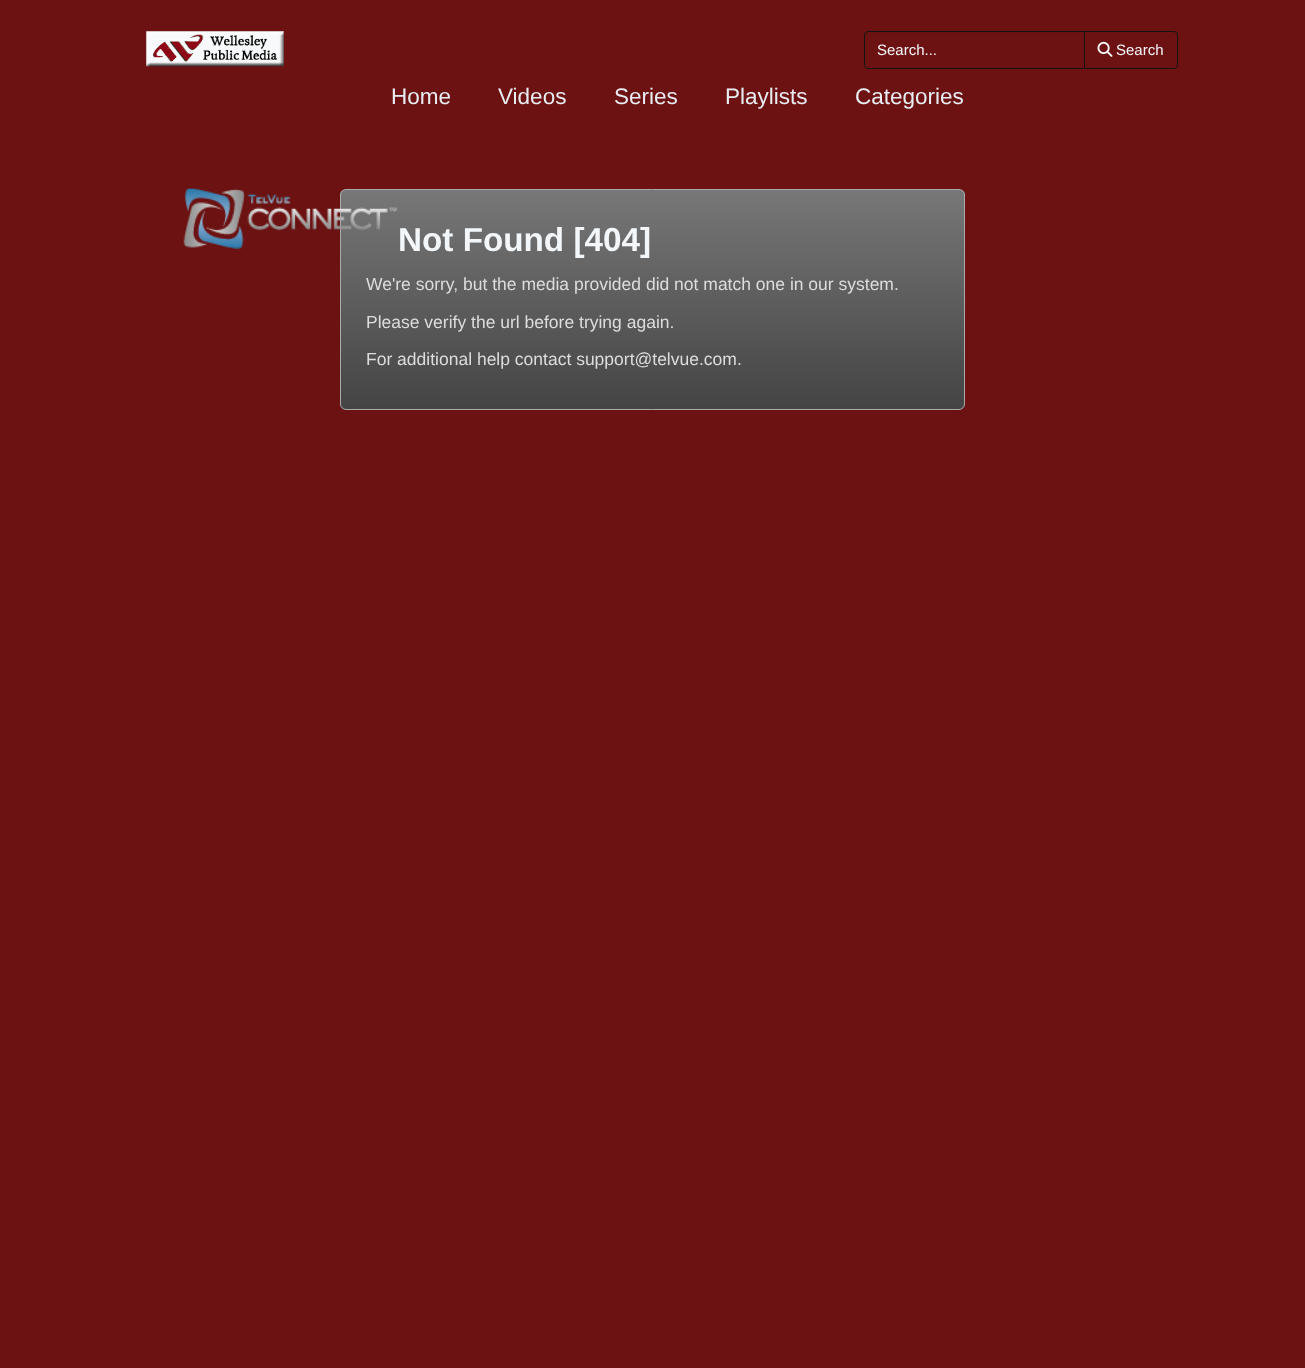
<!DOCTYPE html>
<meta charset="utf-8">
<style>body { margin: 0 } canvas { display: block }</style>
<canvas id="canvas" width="1305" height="1368"></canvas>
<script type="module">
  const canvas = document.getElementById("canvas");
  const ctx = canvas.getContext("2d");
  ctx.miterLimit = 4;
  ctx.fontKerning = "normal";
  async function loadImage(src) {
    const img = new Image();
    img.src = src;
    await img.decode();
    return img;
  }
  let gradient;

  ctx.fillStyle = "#6d1212";
  ctx.fillRect(0, 0, 1305, 1368);
  ctx.drawImage(await loadImage("img1.png"), 146, 31, 138, 36);
  ctx.fillStyle = "#651111";
  ctx.beginPath();
  ctx.moveTo(868, 34);
  ctx.lineTo(1084, 34);
  ctx.lineTo(1084, 33);
  ctx.lineTo(868, 33);
  ctx.bezierCurveTo(866, 33, 865, 34, 865, 36);
  ctx.bezierCurveTo(865, 35, 866, 34, 868, 34);
  ctx.closePath();
  ctx.fill();
  ctx.beginPath();
  ctx.roundRect(864.5, 31.5, 220, 37, [3.5, 0, 0, 3.5]);
  ctx.strokeStyle = "#151414";
  ctx.stroke();
  ctx.font = "15px Liberation Sans";
  ctx.fillStyle = "#f3f7fa";
  ctx.fillText("Search...", 877, 55);
  ctx.fillStyle = "#6d1212";
  ctx.beginPath();
  ctx.roundRect(1084.5, 31.5, 93, 37, [0, 3.5, 3.5, 0]);
  ctx.fill();
  ctx.stroke();
  ctx.drawImage(await loadImage("img2.png"), 1097, 41, 16, 16);
  ctx.fillStyle = "#f3f7fa";
  ctx.fillText("Search", 1116, 55);
  ctx.font = "22.5px Liberation Sans";
  ctx.fillStyle = "#e7edf2";
  ctx.fillText("Home", 391, 104);
  ctx.fillText("Videos", 498, 104);
  ctx.fillText("Series", 614, 104);
  ctx.fillText("Playlists", 725, 104);
  ctx.fillText("Categories", 855, 104);
  ctx.save();
  ctx.beginPath();
  ctx.roundRect(340, 189, 625, 221, 6);
  ctx.clip();
  gradient = ctx.createLinearGradient(653, 190, 653, 409);
  gradient.addColorStop(0, "#777777");
  gradient.addColorStop(1, "#444444");
  ctx.fillStyle = gradient;
  ctx.fillRect(340, 190, 625, 219);
  ctx.restore();
  ctx.beginPath();
  ctx.roundRect(340.5, 189.5, 624, 220, 5.5);
  ctx.strokeStyle = "#aaaaaa";
  ctx.stroke();
  ctx.drawImage(await loadImage("img3.png"), 183, 188, 215, 61);
  ctx.font = "bold 33.25px Liberation Sans";
  ctx.fillStyle = "#f3f7fa";
  ctx.fillText("Not Found [404]", 398, 251);
  ctx.font = "17.5px Liberation Sans";
  ctx.fillStyle = "#dddddd";
  ctx.fillText("We're sorry, but the media provided did not match one in our system.", 366, 290);
  ctx.fillText("Please verify the url before trying again.", 366, 328);
  ctx.fillText("For additional help contact support@telvue.com.", 366, 365);
</script>
